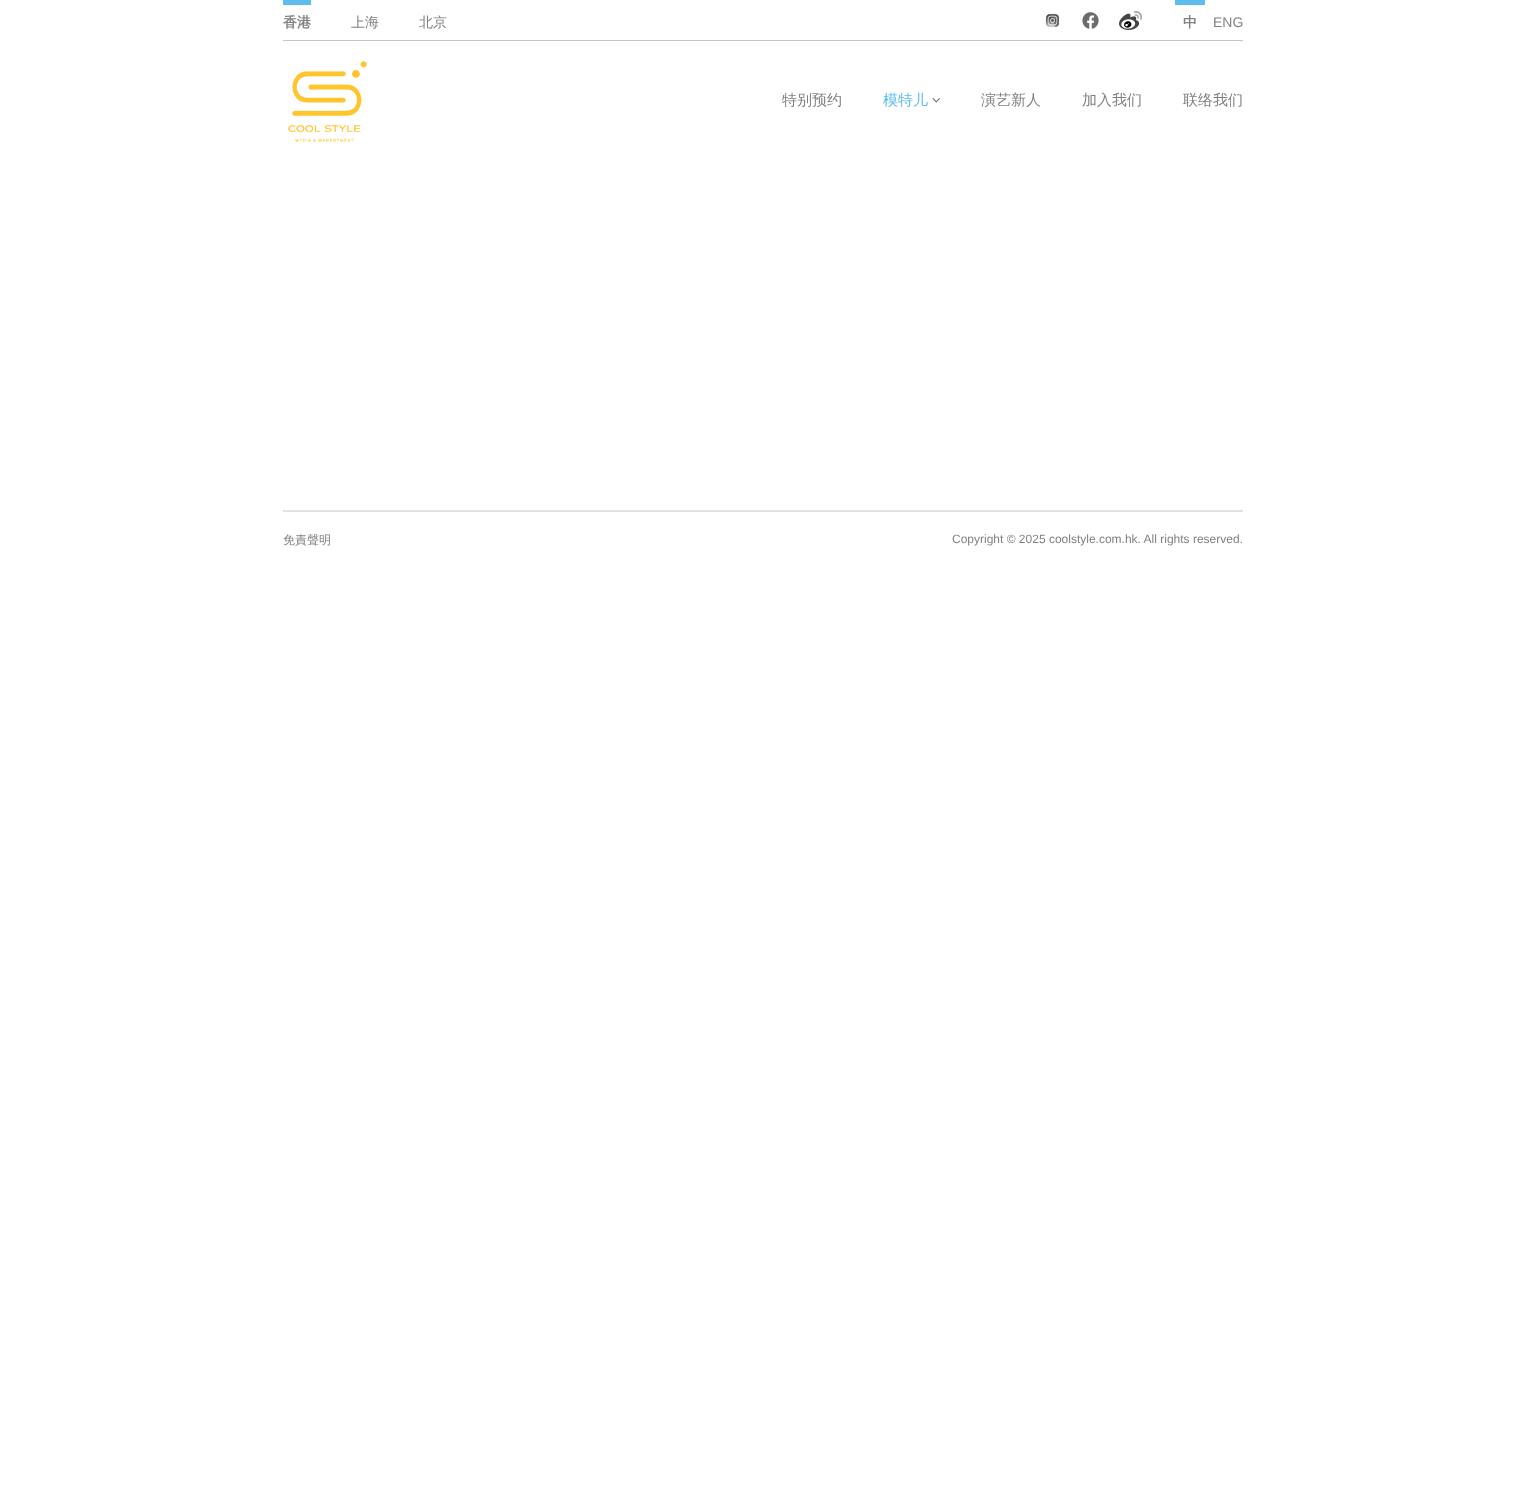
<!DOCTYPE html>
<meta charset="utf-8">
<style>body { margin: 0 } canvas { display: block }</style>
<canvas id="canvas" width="1526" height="1495"></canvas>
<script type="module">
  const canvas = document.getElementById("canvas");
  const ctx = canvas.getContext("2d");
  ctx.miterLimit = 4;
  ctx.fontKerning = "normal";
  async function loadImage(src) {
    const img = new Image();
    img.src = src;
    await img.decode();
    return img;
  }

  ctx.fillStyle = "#ffffff";
  ctx.fillRect(0, 0, 1526, 1495);
  ctx.fillStyle = "#c5c5c5";
  ctx.fillRect(283, 40, 960, 1);
  ctx.fillStyle = "#5cbcec";
  ctx.fillRect(283, 0, 28, 5);
  ctx.font = "bold 14px WenQuanYi Zen Hei";
  ctx.fillStyle = "#808080";
  ctx.fillText("香港", 283, 27);
  ctx.font = "500 14px WenQuanYi Zen Hei";
  ctx.fillText("上海", 351, 27);
  ctx.fillText("北京", 419, 27);
  ctx.drawImage(await loadImage("img1.png"), 1045, 13, 15, 15);
  ctx.drawImage(await loadImage("img2.png"), 1082, 12, 17, 17);
  ctx.drawImage(await loadImage("img3.png"), 1119, 11, 23, 19);
  ctx.fillStyle = "#5cbcec";
  ctx.fillRect(1175, 0, 30, 5);
  ctx.font = "bold 14px WenQuanYi Zen Hei";
  ctx.fillStyle = "#808080";
  ctx.fillText("中", 1183, 27);
  ctx.font = "14px Liberation Sans";
  ctx.fillText("ENG", 1213, 27);
  ctx.drawImage(await loadImage("img4.png"), 288, 61, 79, 82);
  ctx.font = "500 15px WenQuanYi Zen Hei";
  ctx.fillText("特别预约", 782, 105);
  ctx.drawImage(await loadImage("img5.png"), 932, 98, 8, 5);
  ctx.fillStyle = "#5cbcec";
  ctx.fillText("模特儿", 883, 105);
  ctx.fillStyle = "#808080";
  ctx.fillText("演艺新人", 981, 105);
  ctx.fillText("加入我们", 1082, 105);
  ctx.fillText("联络我们", 1183, 105);
  ctx.fillStyle = "#e2e2e2";
  ctx.fillRect(283, 510, 960, 2);
  ctx.font = "500 12px WenQuanYi Zen Hei";
  ctx.fillStyle = "#808080";
  ctx.fillText("免責聲明", 283, 544);
  ctx.font = "12px Liberation Sans";
  ctx.fillText("Copyright © 2025 coolstyle.com.hk. All rights reserved.", 952, 543);
</script>
